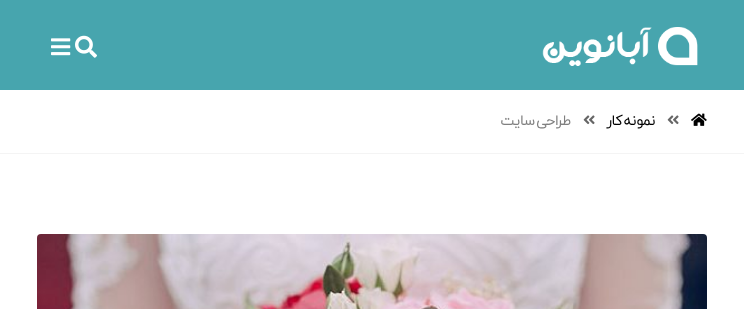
<!DOCTYPE html>
<meta charset="utf-8">
<style>body { margin: 0 } canvas { display: block }</style>
<canvas id="canvas" width="744" height="309"></canvas>
<script type="module">
  const canvas = document.getElementById("canvas");
  const ctx = canvas.getContext("2d");
  ctx.miterLimit = 4;
  ctx.fontKerning = "normal";
  async function loadImage(src) {
    const img = new Image();
    img.src = src;
    await img.decode();
    return img;
  }

  ctx.fillStyle = "#ffffff";
  ctx.fillRect(0, 0, 744, 309);
  ctx.fillStyle = "#47a5ae";
  ctx.fillRect(0, 0, 744, 90);
  ctx.drawImage(await loadImage("img1.png"), 542, 27, 156, 39);
  ctx.drawImage(await loadImage("img2.png"), 75, 35, 22, 23);
  ctx.drawImage(await loadImage("img3.png"), 51, 38, 20, 18);
  ctx.fillStyle = "#f4f4f4";
  ctx.fillRect(0, 153, 744, 1);
  ctx.drawImage(await loadImage("img4.png"), 691, 113, 16, 13);
  ctx.drawImage(await loadImage("img5.png"), 667, 115, 12, 10);
  ctx.wordSpacing = "-3px";
  ctx.direction = "rtl";
  ctx.font = "bold 14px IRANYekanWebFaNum";
  ctx.fillStyle = "#000000";
  ctx.fillText("نمونه کار", 655, 125);
  ctx.drawImage(await loadImage("img5.png"), 583, 115, 12, 10);
  ctx.fillStyle = "#808080";
  ctx.fillText("طراحی سایت", 571, 125);
  ctx.drawImage(await loadImage("img6.png"), 37, 234, 670, 75);
</script>
